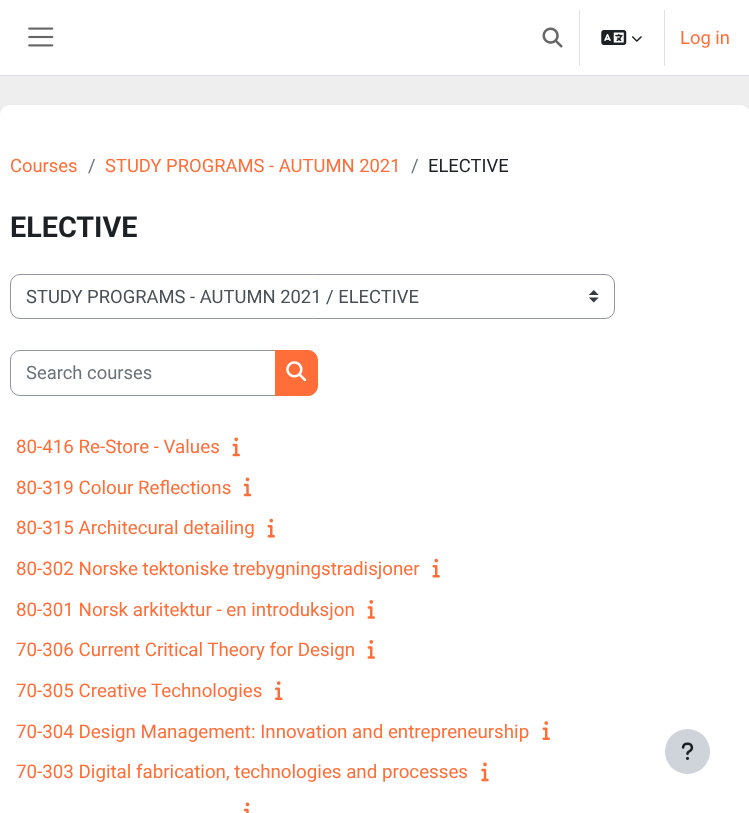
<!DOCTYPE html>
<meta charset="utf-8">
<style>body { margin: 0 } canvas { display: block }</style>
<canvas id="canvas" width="749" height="813"></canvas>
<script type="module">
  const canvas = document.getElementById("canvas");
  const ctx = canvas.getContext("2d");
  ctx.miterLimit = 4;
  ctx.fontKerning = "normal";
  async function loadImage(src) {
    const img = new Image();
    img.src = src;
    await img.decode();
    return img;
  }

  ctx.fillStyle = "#eeeeee";
  ctx.fillRect(0, 0, 749, 813);
  ctx.fillStyle = "#ffffff";
  ctx.fillRect(0, 0, 749, 75);
  ctx.fillStyle = "#dee2e6";
  ctx.fillRect(0, 75, 749, 1);
  ctx.drawImage(await loadImage("img1.png"), 28, 27, 26, 20);
  ctx.drawImage(await loadImage("img2.png"), 542, 27, 21, 21);
  ctx.fillRect(579, 10, 1, 56);
  ctx.drawImage(await loadImage("img3.png"), 601, 30, 26, 15);
  ctx.drawImage(await loadImage("img4.png"), 632, 36, 10, 6);
  ctx.fillRect(664, 10, 1, 56);
  ctx.font = "18.4px Roboto";
  ctx.fillStyle = "#ff6e38";
  ctx.fillText("Log in", 680, 44);
  ctx.fillStyle = "#ffffff";
  ctx.beginPath();
  ctx.roundRect(0, 105, 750, 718, 10);
  ctx.fill();
  ctx.fillStyle = "#ff6e38";
  ctx.fillText("Courses", 10, 172);
  ctx.fillStyle = "#6a737b";
  ctx.fillText("/", 88, 172);
  ctx.fillStyle = "#ff6e38";
  ctx.fillText("STUDY PROGRAMS - AUTUMN 2021", 105, 172);
  ctx.fillStyle = "#6a737b";
  ctx.fillText("/", 411, 172);
  ctx.fillStyle = "#1d2125";
  ctx.fillText("ELECTIVE", 428, 172);
  ctx.font = "bold 28.75px Roboto";
  ctx.fillText("ELECTIVE", 10, 237);
  ctx.drawImage(await loadImage("img5.png"), 589, 290, 10, 13);
  ctx.beginPath();
  ctx.roundRect(10.5, 274.5, 604, 44, 9.5);
  ctx.strokeStyle = "#8f959e";
  ctx.stroke();
  ctx.font = "18.4px Roboto";
  ctx.fillStyle = "#495057";
  ctx.fillText("STUDY PROGRAMS - AUTUMN 2021 / ELECTIVE", 26, 303);
  ctx.beginPath();
  ctx.roundRect(10.5, 350.5, 265, 45, [9.5, 0, 0, 9.5]);
  ctx.stroke();
  ctx.fillStyle = "#6a737b";
  ctx.fillText("Search courses", 26, 379);
  ctx.fillStyle = "#ff6e38";
  ctx.beginPath();
  ctx.roundRect(275.5, 350.5, 42, 45, [0, 9.5, 9.5, 0]);
  ctx.fill();
  ctx.strokeStyle = "#ff6e38";
  ctx.stroke();
  ctx.drawImage(await loadImage("img6.png"), 286, 361, 21, 21);
  ctx.font = "18.75px Roboto";
  ctx.fillText("80-416 Re-Store - Values", 16, 453);
  ctx.drawImage(await loadImage("img7.png"), 232, 437, 8, 20);
  ctx.fillText("80-319 Colour Reflections", 16, 494);
  ctx.drawImage(await loadImage("img8.png"), 243, 477, 9, 20);
  ctx.fillText("80-315 Architecural detailing", 16, 534);
  ctx.drawImage(await loadImage("img9.png"), 267, 518, 8, 20);
  ctx.fillText("80-302 Norske tektoniske trebygningstradisjoner", 16, 575);
  ctx.drawImage(await loadImage("img9.png"), 432, 558, 8, 20);
  ctx.fillText("80-301 Norsk arkitektur - en introduksjon", 16, 616);
  ctx.drawImage(await loadImage("img10.png"), 367, 600, 8, 19);
  ctx.fillText("70-306 Current Critical Theory for Design", 16, 656);
  ctx.drawImage(await loadImage("img10.png"), 367, 640, 8, 19);
  ctx.fillText("70-305 Creative Technologies", 16, 697);
  ctx.drawImage(await loadImage("img11.png"), 275, 681, 8, 19);
  ctx.fillText("70-304 Design Management: Innovation and entrepreneurship", 16, 738);
  ctx.drawImage(await loadImage("img12.png"), 542, 721, 8, 19);
  ctx.fillText("70-303 Digital fabrication, technologies and processes", 16, 778);
  ctx.drawImage(await loadImage("img13.png"), 481, 762, 8, 20);
  ctx.drawImage(await loadImage("img14.png"), 243, 802, 7, 11);
  ctx.fillStyle = "#ced4da";
  ctx.beginPath();
  ctx.arc(687.5, 751.5, 22.5, 0, Math.PI * 2);
  ctx.fill();
  ctx.drawImage(await loadImage("img15.png"), 681, 742, 13, 18);
</script>
